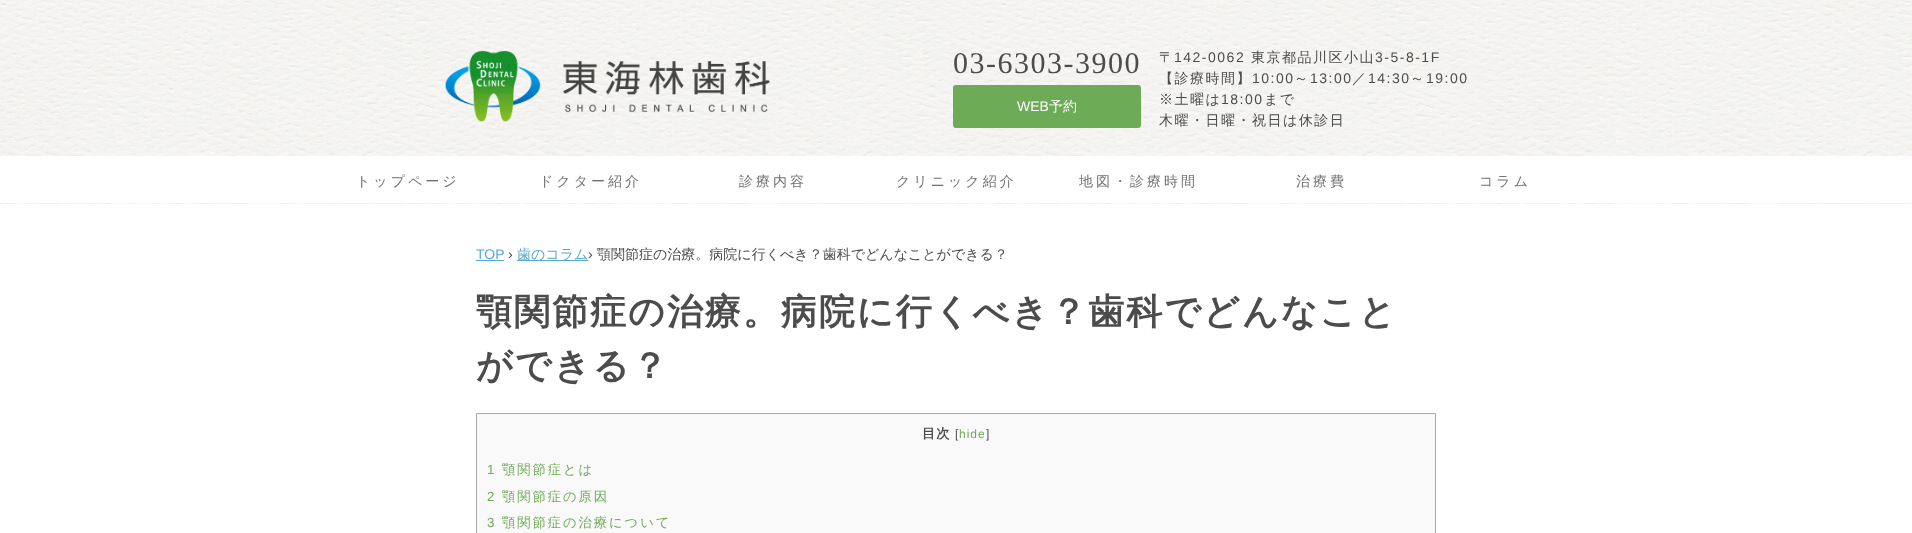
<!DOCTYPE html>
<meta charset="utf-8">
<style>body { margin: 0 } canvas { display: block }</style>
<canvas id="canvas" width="1912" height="533"></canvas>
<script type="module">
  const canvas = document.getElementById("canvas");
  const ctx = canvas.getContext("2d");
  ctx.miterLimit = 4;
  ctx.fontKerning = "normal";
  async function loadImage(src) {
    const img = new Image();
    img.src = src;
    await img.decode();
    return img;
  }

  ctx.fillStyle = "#ffffff";
  ctx.fillRect(0, 0, 1912, 533);
  ctx.drawImage(await loadImage("img1.png"), 0, 0, 1912, 204);
  ctx.drawImage(await loadImage("img2.png"), 445, 50, 325, 72);
  ctx.letterSpacing = "1.5px";
  ctx.font = "30px Liberation Serif";
  ctx.fillStyle = "#4c4c4c";
  ctx.fillText("03-6303-3900", 953, 73);
  ctx.fillStyle = "#6eab57";
  ctx.beginPath();
  ctx.roundRect(954, 86, 186, 41, 2);
  ctx.fill();
  ctx.strokeStyle = "#6eab57";
  ctx.lineWidth = 2;
  ctx.stroke();
  ctx.letterSpacing = "0px";
  ctx.font = "14px Liberation Sans";
  ctx.fillStyle = "#ffffff";
  ctx.fillText("WEB", 1017, 111);
  ctx.font = "500 14px WenQuanYi Zen Hei";
  ctx.fillText("予約", 1049, 111);
  ctx.letterSpacing = "1.5px";
  ctx.fillStyle = "#4c4c4c";
  ctx.fillText("〒", 1159, 62);
  ctx.font = "14px Liberation Sans";
  ctx.fillText("142-0062", 1174, 62);
  ctx.font = "500 14px WenQuanYi Zen Hei";
  ctx.fillText("東京都品川区小山", 1251, 62);
  ctx.font = "14px Liberation Sans";
  ctx.fillText("3-5-8-1F", 1375, 62);
  ctx.font = "500 14px WenQuanYi Zen Hei";
  ctx.fillText("【診療時間】", 1159, 83);
  ctx.font = "14px Liberation Sans";
  ctx.fillText("10:00", 1252, 83);
  ctx.font = "500 14px WenQuanYi Zen Hei";
  ctx.fillText("～", 1294, 83);
  ctx.font = "14px Liberation Sans";
  ctx.fillText("13:00", 1310, 83);
  ctx.font = "500 14px WenQuanYi Zen Hei";
  ctx.fillText("／", 1352, 83);
  ctx.font = "14px Liberation Sans";
  ctx.fillText("14:30", 1368, 83);
  ctx.font = "500 14px WenQuanYi Zen Hei";
  ctx.fillText("～", 1410, 83);
  ctx.font = "14px Liberation Sans";
  ctx.fillText("19:00", 1426, 83);
  ctx.font = "500 14px WenQuanYi Zen Hei";
  ctx.fillText("※土曜は", 1159, 104);
  ctx.font = "14px Liberation Sans";
  ctx.fillText("18:00", 1221, 104);
  ctx.font = "500 14px WenQuanYi Zen Hei";
  ctx.fillText("まで", 1264, 104);
  ctx.fillText("木曜・日曜・祝日は休診日", 1159, 125);
  ctx.fillStyle = "#ffffff";
  ctx.fillRect(0, 156, 1912, 47);
  ctx.letterSpacing = "3px";
  ctx.fillStyle = "#727272";
  ctx.fillText("トップページ", 356, 186);
  ctx.fillText("ドクター紹介", 539, 186);
  ctx.fillText("診療内容", 739, 186);
  ctx.fillText("クリニック紹介", 896, 186);
  ctx.fillText("地図・診療時間", 1079, 186);
  ctx.fillText("治療費", 1296, 186);
  ctx.fillText("コラム", 1479, 186);
  ctx.letterSpacing = "0px";
  ctx.font = "14px Liberation Sans";
  ctx.fillStyle = "#56a9d1";
  ctx.fillText("TOP", 476, 259);
  ctx.fillRect(476, 260, 28, 1);
  ctx.fillStyle = "#4c4c4c";
  ctx.fillText("›", 508, 259);
  ctx.fillStyle = "#56a9d1";
  ctx.fillRect(517, 260, 71, 1);
  ctx.font = "500 14px WenQuanYi Zen Hei";
  ctx.fillText("歯のコラム", 517, 259);
  ctx.font = "14px Liberation Sans";
  ctx.fillStyle = "#4c4c4c";
  ctx.fillText("›", 588, 259);
  ctx.font = "500 14px WenQuanYi Zen Hei";
  ctx.fillText("顎関節症の治療。病院に行くべき？歯科でどんなことができる？", 597, 259);
  ctx.letterSpacing = "2px";
  ctx.font = "bold 36px WenQuanYi Zen Hei";
  ctx.fillText("顎関節症の治療。病院に行くべき？歯科でどんなこと", 476, 324);
  ctx.fillText("ができる？", 476, 378);
  ctx.fillStyle = "#f9f9f9";
  ctx.beginPath();
  ctx.rect(476.5, 413.5, 959, 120);
  ctx.fill();
  ctx.strokeStyle = "#aaaaaa";
  ctx.lineWidth = 1;
  ctx.stroke();
  ctx.letterSpacing = "1px";
  ctx.font = "bold 13.25px WenQuanYi Zen Hei";
  ctx.fillStyle = "#4c4c4c";
  ctx.fillText("目次", 922, 438);
  ctx.font = "12px Liberation Sans";
  ctx.fillText("[", 955, 438);
  ctx.fillStyle = "#6eab57";
  ctx.fillText("hide", 959, 438);
  ctx.fillStyle = "#4c4c4c";
  ctx.fillText("]", 986, 438);
  ctx.letterSpacing = "2px";
  ctx.font = "13.25px Liberation Sans";
  ctx.fillStyle = "#6eab57";
  ctx.fillText("1", 487, 474);
  ctx.font = "500 13.25px WenQuanYi Zen Hei";
  ctx.fillText("顎関節症とは", 502, 474);
  ctx.font = "13.25px Liberation Sans";
  ctx.fillText("2", 487, 501);
  ctx.font = "500 13.25px WenQuanYi Zen Hei";
  ctx.fillText("顎関節症の原因", 502, 501);
  ctx.font = "13.25px Liberation Sans";
  ctx.fillText("3", 487, 527);
  ctx.font = "500 13.25px WenQuanYi Zen Hei";
  ctx.fillText("顎関節症の治療について", 502, 527);
</script>
